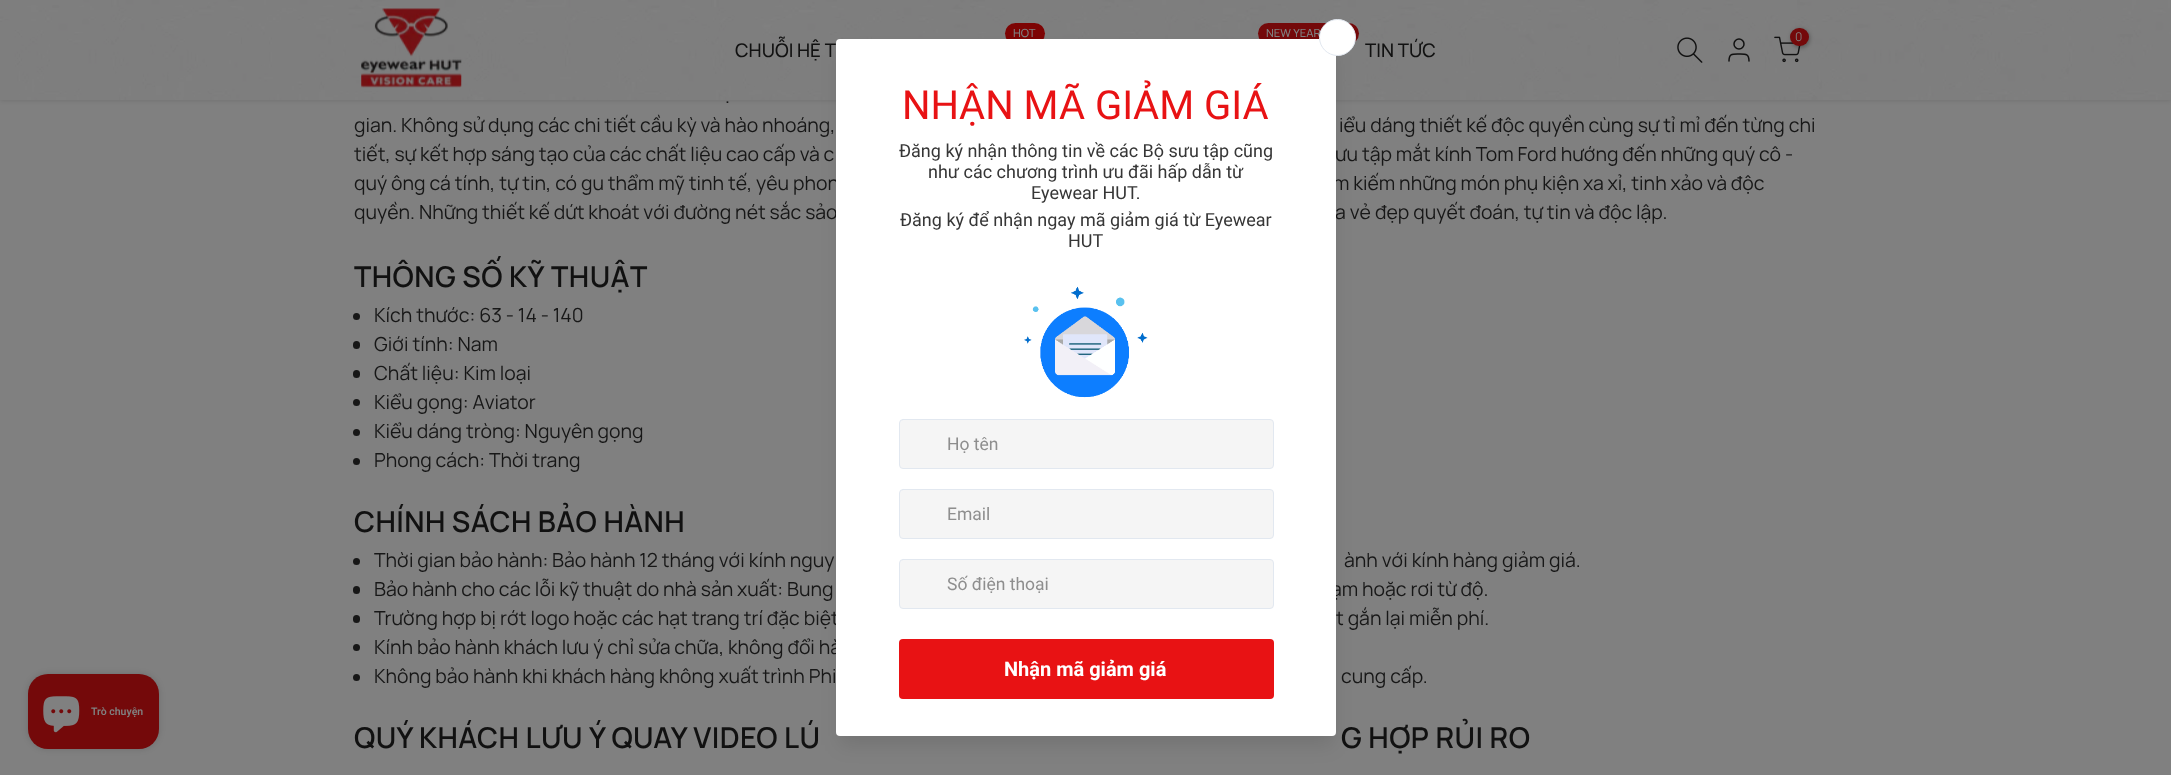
<!DOCTYPE html>
<meta charset="utf-8">
<style>body { margin: 0 } canvas { display: block }</style>
<canvas id="canvas" width="2171" height="775"></canvas>
<script type="module">
  const canvas = document.getElementById("canvas");
  const ctx = canvas.getContext("2d");
  ctx.miterLimit = 4;
  ctx.fontKerning = "normal";
  async function loadImage(src) {
    const img = new Image();
    img.src = src;
    await img.decode();
    return img;
  }

  ctx.fillStyle = "#808080";
  ctx.fillRect(0, 0, 2171, 775);
  ctx.fillStyle = "rgba(0, 0, 0, 0.1)";
  ctx.filter = "blur(2px)";
  ctx.beginPath();
  ctx.rect(0, 1, 2171, 100);
  ctx.fill();
  ctx.filter = "none";
  ctx.drawImage(await loadImage("img1.png"), 0, 0, 2171, 100);
  ctx.drawImage(await loadImage("img2.png"), 361, 8, 101, 80);
  ctx.fillStyle = "#7d0404";
  ctx.beginPath();
  ctx.roundRect(1005, 23, 40, 21, 10.5);
  ctx.fill();
  ctx.font = "500 11.25px Manrope";
  ctx.fillStyle = "#808080";
  ctx.fillText("HOT", 1013, 37);
  ctx.fillStyle = "#74090a";
  ctx.beginPath();
  ctx.roundRect(1258, 23, 101, 21, 10.5);
  ctx.fill();
  ctx.fillStyle = "#808080";
  ctx.fillText("NEW YEAR", 1266, 37);
  ctx.font = "500 18.75px Manrope";
  ctx.fillStyle = "#111111";
  ctx.fillText("CHUỖI HỆ T", 735, 57);
  ctx.fillText("TIN TỨC", 1365, 57);
  ctx.drawImage(await loadImage("img3.png"), 1677, 37, 26, 26);
  ctx.beginPath();
  ctx.arc(1739, 44, 5, 0, Math.PI * 2);
  ctx.strokeStyle = "#111111";
  ctx.lineWidth = 1.5;
  ctx.stroke();
  ctx.beginPath();
  ctx.moveTo(1749, 61);
  ctx.bezierCurveTo(1749, 53.5, 1745.5, 54, 1739, 54);
  ctx.bezierCurveTo(1732, 54, 1729, 53.5, 1729, 61);
  ctx.lineCap = "round";
  ctx.lineJoin = "round";
  ctx.stroke();
  ctx.drawImage(await loadImage("img4.png"), 1774, 36, 27, 27);
  ctx.fillStyle = "rgba(0, 0, 0, 0.3)";
  ctx.filter = "blur(2px)";
  ctx.beginPath();
  ctx.roundRect(1791, 29, 19, 19, 9.5);
  ctx.fill();
  ctx.filter = "none";
  ctx.fillStyle = "#74090a";
  ctx.beginPath();
  ctx.roundRect(1790, 28, 19, 18, 9);
  ctx.fill();
  ctx.font = "12px Manrope";
  ctx.fillStyle = "#808080";
  ctx.fillText("0", 1795, 41);
  ctx.font = "19.4px Manrope";
  ctx.fillStyle = "#171717";
  ctx.fillText(".", 725, 103);
  ctx.fillText("gian. Không sử dụng các chi tiết cầu kỳ và hào nhoáng,", 354, 132);
  ctx.fillText("iểu dáng thiết kế độc quyền cùng sự tỉ mỉ đến từng chi", 1339, 132);
  ctx.fillText("tiết, sự kết hợp sáng tạo của các chất liệu cao cấp và c", 354, 161);
  ctx.fillText("ưu tập mắt kính Tom Ford hướng đến những quý cô -", 1335, 161);
  ctx.fillText("quý ông cá tính, tự tin, có gu thẩm mỹ tinh tế, yêu phon", 354, 190);
  ctx.fillText("m kiếm những món phụ kiện xa xỉ, tinh xảo và độc", 1333, 190);
  ctx.fillText("quyền. Những thiết kế dứt khoát với đường nét sắc sảo", 354, 219);
  ctx.fillText("a vẻ đẹp quyết đoán, tự tin và độc lập.", 1335, 219);
  ctx.letterSpacing = "0.4px";
  ctx.font = "600 28.75px Manrope";
  ctx.fillStyle = "#111111";
  ctx.fillText("THÔNG SỐ KỸ THUẬT", 354, 287);
  ctx.fillStyle = "#171717";
  ctx.beginPath();
  ctx.arc(356.5, 316.5, 3.5, 0, Math.PI * 2);
  ctx.fill();
  ctx.letterSpacing = "0px";
  ctx.font = "19.4px Manrope";
  ctx.fillText("Kích thước: 63 - 14 - 140", 374, 322);
  ctx.beginPath();
  ctx.roundRect(353, 341, 7, 8, 3.5);
  ctx.fill();
  ctx.fillText("Giới tính: Nam", 374, 351);
  ctx.beginPath();
  ctx.roundRect(353, 370, 7, 8, 3.5);
  ctx.fill();
  ctx.fillText("Chất liệu: Kim loại", 374, 380);
  ctx.beginPath();
  ctx.arc(356.5, 402.5, 3.5, 0, Math.PI * 2);
  ctx.fill();
  ctx.fillText("Kiểu gọng: Aviator", 374, 409);
  ctx.beginPath();
  ctx.arc(356.5, 432.5, 3.5, 0, Math.PI * 2);
  ctx.fill();
  ctx.fillText("Kiểu dáng tròng: Nguyên gọng", 374, 438);
  ctx.beginPath();
  ctx.arc(356.5, 461.5, 3.5, 0, Math.PI * 2);
  ctx.fill();
  ctx.fillText("Phong cách: Thời trang", 374, 467);
  ctx.letterSpacing = "0.4px";
  ctx.font = "600 28.75px Manrope";
  ctx.fillStyle = "#111111";
  ctx.fillText("CHÍNH SÁCH BẢO HÀNH", 354, 532);
  ctx.fillStyle = "#171717";
  ctx.beginPath();
  ctx.arc(356.5, 561.5, 3.5, 0, Math.PI * 2);
  ctx.fill();
  ctx.letterSpacing = "0px";
  ctx.font = "19.4px Manrope";
  ctx.fillText("Thời gian bảo hành: Bảo hành 12 tháng với kính nguy", 374, 567);
  ctx.fillText("ành với kính hàng giảm giá.", 1344, 567);
  ctx.beginPath();
  ctx.roundRect(353, 586, 7, 8, 3.5);
  ctx.fill();
  ctx.fillText("Bảo hành cho các lỗi kỹ thuật do nhà sản xuất: Bung", 374, 596);
  ctx.fillText("ạm hoặc rơi từ độ.", 1331, 596);
  ctx.beginPath();
  ctx.roundRect(353, 615, 7, 8, 3.5);
  ctx.fill();
  ctx.fillText("Trường hợp bị rớt logo hoặc các hạt trang trí đặc biệt", 374, 625);
  ctx.fillText("t gắn lại miễn phí.", 1336, 625);
  ctx.beginPath();
  ctx.arc(356.5, 647.5, 3.5, 0, Math.PI * 2);
  ctx.fill();
  ctx.fillText("Kính bảo hành khách lưu ý chỉ sửa chữa, không đổi hà", 374, 654);
  ctx.beginPath();
  ctx.arc(356.5, 677.5, 3.5, 0, Math.PI * 2);
  ctx.fill();
  ctx.fillText("Không bảo hành khi khách hàng không xuất trình Phi", 374, 683);
  ctx.fillText("cung cấp.", 1341, 683);
  ctx.letterSpacing = "0.4px";
  ctx.font = "600 28.75px Manrope";
  ctx.fillStyle = "#111111";
  ctx.fillText("QUÝ KHÁCH LƯU Ý QUAY VIDEO LÚ", 354, 748);
  ctx.fillText("G HỢP RỦI RO", 1341, 748);
  ctx.fillStyle = "rgba(0, 0, 0, 0.1)";
  ctx.filter = "blur(9.5px)";
  ctx.beginPath();
  ctx.rect(840, 55, 493, 690);
  ctx.fill();
  ctx.filter = "none";
  ctx.fillStyle = "#ffffff";
  ctx.beginPath();
  ctx.roundRect(836, 39, 500, 697, 4);
  ctx.fill();
  ctx.beginPath();
  ctx.arc(1337.5, 37.5, 18, 0, Math.PI * 2);
  ctx.fill();
  ctx.strokeStyle = "#e2e8f0";
  ctx.lineWidth = 1;
  ctx.stroke();
  ctx.letterSpacing = "0px";
  ctx.font = "40px Roboto";
  ctx.fillStyle = "#e81214";
  ctx.fillText("NHẬN MÃ GIẢM GIÁ", 902, 119);
  ctx.font = "18px Roboto";
  ctx.fillStyle = "#363636";
  ctx.fillText("Đăng ký nhận thông tin về các Bộ sưu tập cũng", 899, 157);
  ctx.fillText("như các chương trình ưu đãi hấp dẫn từ", 928, 178);
  ctx.fillText("Eyewear HUT.", 1031, 199);
  ctx.fillText("Đăng ký để nhận ngay mã giảm giá từ Eyewear", 900, 226);
  ctx.fillText("HUT", 1068, 247);
  ctx.drawImage(await loadImage("img5.png"), 1024, 286, 124, 112);
  ctx.fillStyle = "#f5f5f5";
  ctx.beginPath();
  ctx.roundRect(899.5, 419.5, 374, 49, 3.5);
  ctx.fill();
  ctx.lineJoin = "miter";
  ctx.stroke();
  ctx.font = "17.5px Roboto";
  ctx.fillStyle = "#8e8e8e";
  ctx.fillText("Họ tên", 947, 450);
  ctx.fillStyle = "#f5f5f5";
  ctx.beginPath();
  ctx.roundRect(899.5, 489.5, 374, 49, 3.5);
  ctx.fill();
  ctx.stroke();
  ctx.fillStyle = "#8e8e8e";
  ctx.fillText("Email", 947, 520);
  ctx.fillStyle = "#f5f5f5";
  ctx.beginPath();
  ctx.roundRect(899.5, 559.5, 374, 49, 3.5);
  ctx.fill();
  ctx.stroke();
  ctx.fillStyle = "#8e8e8e";
  ctx.fillText("Số điện thoại", 947, 590);
  ctx.fillStyle = "#e81214";
  ctx.beginPath();
  ctx.roundRect(899, 639, 375, 60, 4);
  ctx.fill();
  ctx.font = "bold 20px Roboto";
  ctx.fillStyle = "#ffffff";
  ctx.fillText("Nhận mã giảm giá", 1004, 676);
  ctx.fillStyle = "rgba(0, 0, 0, 0.15)";
  ctx.filter = "blur(3px)";
  ctx.beginPath();
  ctx.roundRect(28, 674, 131, 75, 20);
  ctx.fill();
  ctx.filter = "none";
  ctx.fillStyle = "#74090a";
  ctx.beginPath();
  ctx.roundRect(28, 674, 131, 75, 20);
  ctx.fill();
  ctx.drawImage(await loadImage("img6.png"), 43, 696, 37, 37);
  ctx.font = "600 10.5px Roboto";
  ctx.fillStyle = "#808080";
  ctx.fillText("Trò chuyện", 91, 715);
</script>
